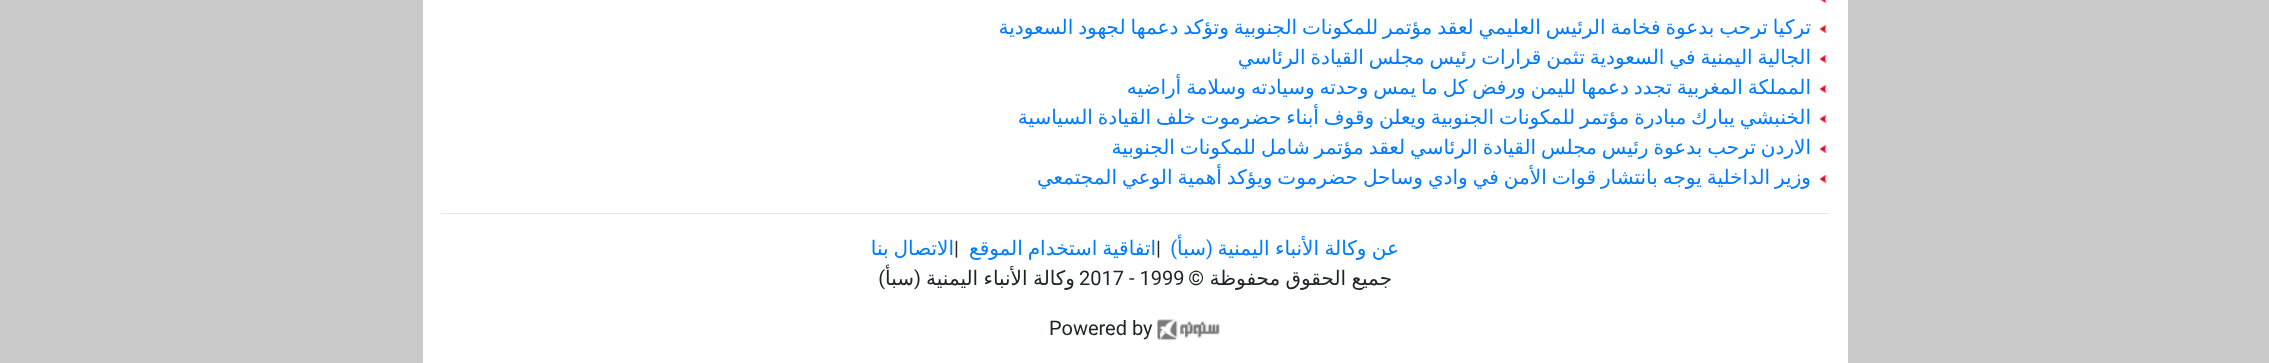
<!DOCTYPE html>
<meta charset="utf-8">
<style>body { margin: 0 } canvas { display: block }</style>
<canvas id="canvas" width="2269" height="363"></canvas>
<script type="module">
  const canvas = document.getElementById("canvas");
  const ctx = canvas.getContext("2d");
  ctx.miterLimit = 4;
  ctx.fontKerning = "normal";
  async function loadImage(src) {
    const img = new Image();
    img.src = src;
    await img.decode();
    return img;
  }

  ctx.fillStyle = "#cacaca";
  ctx.fillRect(0, 0, 2269, 363);
  ctx.fillStyle = "#ffffff";
  ctx.fillRect(423, 0, 1425, 363);
  ctx.drawImage(await loadImage("img1.png"), 1819, 0, 8, 4);
  ctx.drawImage(await loadImage("img2.png"), 1819, 24, 8, 10);
  ctx.wordSpacing = "-1.4px";
  ctx.direction = "rtl";
  ctx.font = "20px DejaVu Sans";
  ctx.fillStyle = "#007bff";
  ctx.fillText("تركيا ترحب بدعوة فخامة الرئيس العليمي لعقد مؤتمر للمكونات الجنوبية وتؤكد دعمها لجهود السعودية", 1811, 34);
  ctx.drawImage(await loadImage("img2.png"), 1819, 54, 8, 10);
  ctx.fillText("الجالية اليمنية في السعودية تثمن قرارات رئيس مجلس القيادة الرئاسي", 1811, 64);
  ctx.drawImage(await loadImage("img2.png"), 1819, 84, 8, 10);
  ctx.fillText("المملكة المغربية تجدد دعمها لليمن ورفض كل ما يمس وحدته وسيادته وسلامة أراضيه", 1811, 94);
  ctx.drawImage(await loadImage("img2.png"), 1819, 114, 8, 10);
  ctx.fillText("الخنبشي يبارك مبادرة مؤتمر للمكونات الجنوبية ويعلن وقوف أبناء حضرموت خلف القيادة السياسية", 1811, 124);
  ctx.drawImage(await loadImage("img2.png"), 1819, 144, 8, 10);
  ctx.fillText("الاردن ترحب بدعوة رئيس مجلس القيادة الرئاسي لعقد مؤتمر شامل للمكونات الجنوبية", 1811, 154);
  ctx.drawImage(await loadImage("img2.png"), 1819, 174, 8, 10);
  ctx.fillText("وزير الداخلية يوجه بانتشار قوات الأمن في وادي وساحل حضرموت ويؤكد أهمية الوعي المجتمعي", 1811, 184);
  ctx.fillStyle = "#e6e6e6";
  ctx.fillRect(441, 213, 1388, 1);
  ctx.wordSpacing = "-1px";
  ctx.fillStyle = "#007bff";
  ctx.fillText("عن وكالة الأنباء اليمنية", 1399, 255);
  ctx.wordSpacing = "0px";
  ctx.font = "20px Roboto";
  ctx.fillText("(", 1213, 255);
  ctx.font = "20px DejaVu Sans";
  ctx.fillText("سبأ", 1206, 255);
  ctx.font = "20px Roboto";
  ctx.fillText(")", 1177, 255);
  ctx.direction = "ltr";
  ctx.fillStyle = "#212529";
  ctx.fillText("|", 1156, 255);
  ctx.wordSpacing = "-1.4px";
  ctx.direction = "rtl";
  ctx.font = "20px DejaVu Sans";
  ctx.fillStyle = "#007bff";
  ctx.fillText("اتفاقية استخدام الموقع", 1156, 255);
  ctx.wordSpacing = "0px";
  ctx.direction = "ltr";
  ctx.font = "20px Roboto";
  ctx.fillStyle = "#212529";
  ctx.fillText("|", 954, 255);
  ctx.wordSpacing = "-1.4px";
  ctx.direction = "rtl";
  ctx.font = "20px DejaVu Sans";
  ctx.fillStyle = "#007bff";
  ctx.fillText("الاتصال بنا", 954, 255);
  ctx.wordSpacing = "-1px";
  ctx.fillStyle = "#212529";
  ctx.fillText("جميع الحقوق محفوظة", 1392, 285);
  ctx.wordSpacing = "0px";
  ctx.font = "20px Roboto";
  ctx.fillText("©", 1204, 285);
  ctx.direction = "ltr";
  ctx.fillText("2017 - 1999", 1079, 285);
  ctx.wordSpacing = "-1px";
  ctx.direction = "rtl";
  ctx.font = "20px DejaVu Sans";
  ctx.fillText("وكالة الأنباء اليمنية", 1075, 285);
  ctx.wordSpacing = "0px";
  ctx.font = "20px Roboto";
  ctx.fillText("(", 921, 285);
  ctx.font = "20px DejaVu Sans";
  ctx.fillText("سبأ", 914, 285);
  ctx.font = "20px Roboto";
  ctx.fillText(")", 885, 285);
  ctx.drawImage(await loadImage("img3.png"), 1157, 319, 63, 22);
  ctx.direction = "ltr";
  ctx.fillText("Powered by", 1049, 335);
</script>
